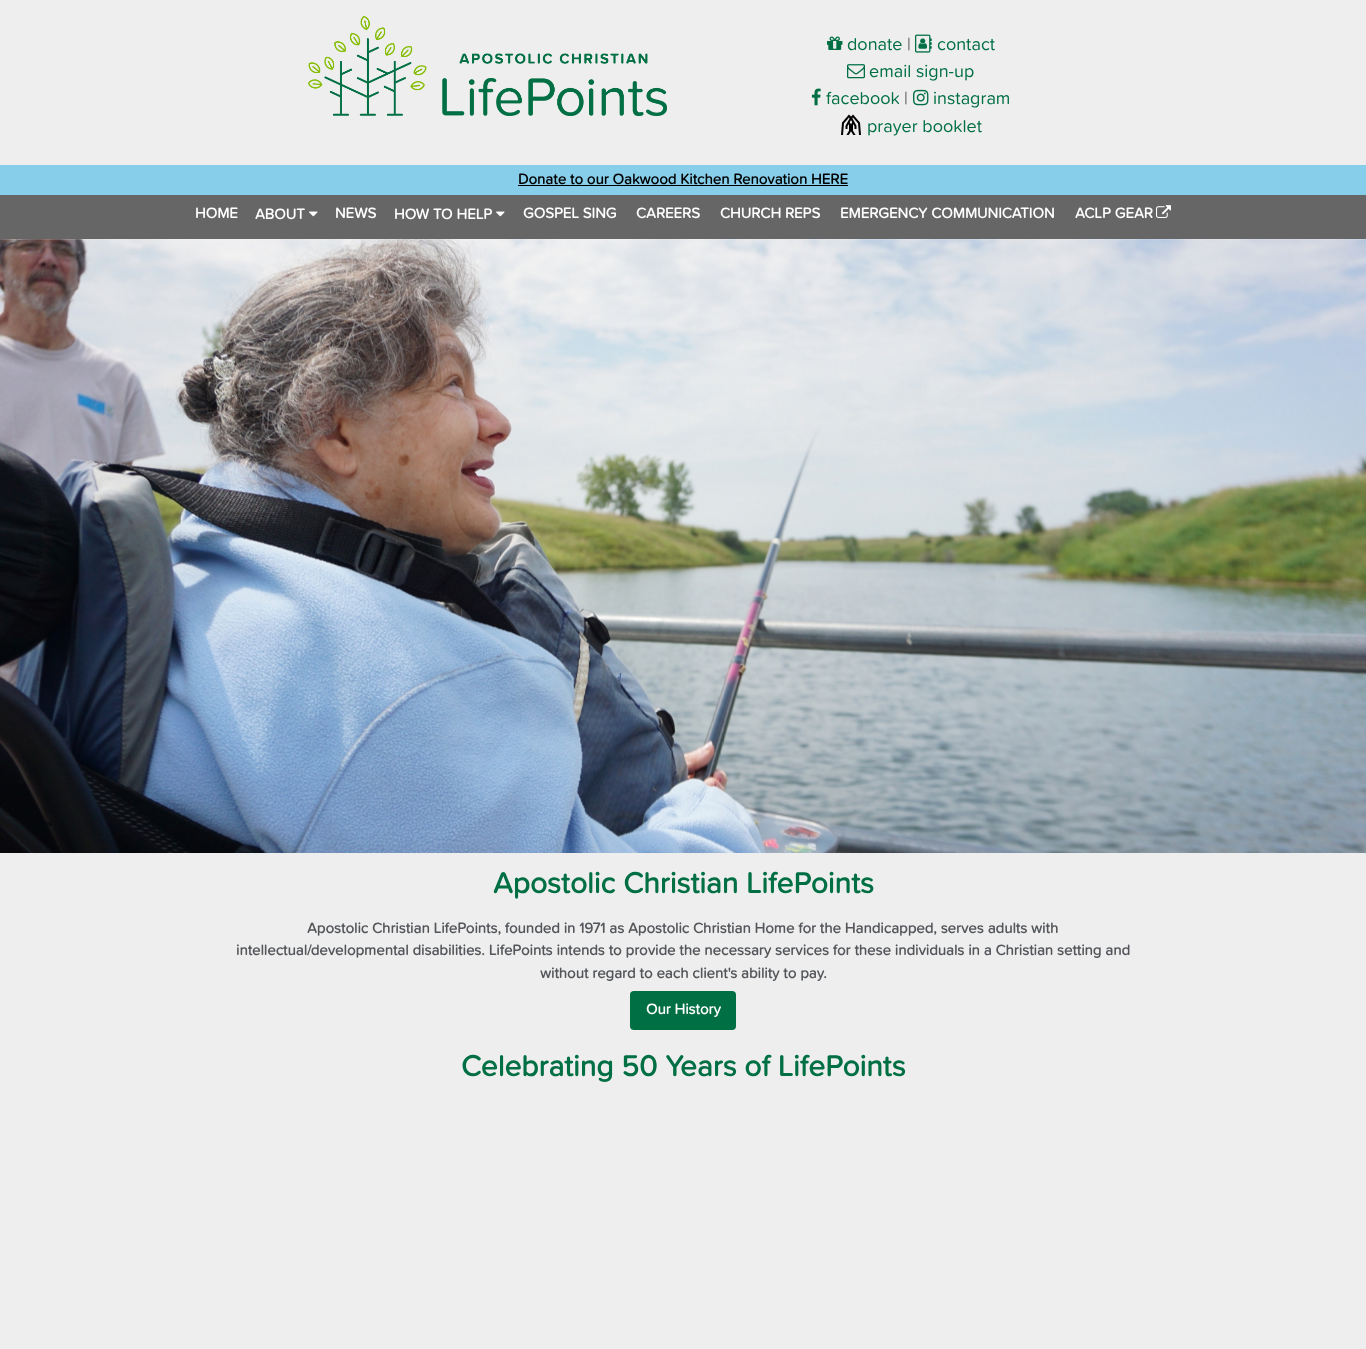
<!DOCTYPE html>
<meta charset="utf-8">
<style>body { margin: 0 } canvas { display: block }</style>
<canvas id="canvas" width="1366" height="1349"></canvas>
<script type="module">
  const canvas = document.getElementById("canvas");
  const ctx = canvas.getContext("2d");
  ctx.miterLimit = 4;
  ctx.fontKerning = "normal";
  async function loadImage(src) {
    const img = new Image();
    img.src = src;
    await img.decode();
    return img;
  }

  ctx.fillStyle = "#eeeeee";
  ctx.fillRect(0, 0, 1366, 1349);
  ctx.drawImage(await loadImage("img1.png"), 308, 16, 359, 100);
  ctx.drawImage(await loadImage("img2.png"), 827, 36, 16, 14);
  ctx.font = "18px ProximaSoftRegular";
  ctx.fillStyle = "#006f44";
  ctx.fillText("donate", 847, 50);
  ctx.fillStyle = "#53565a";
  ctx.fillText("|", 907, 50);
  ctx.drawImage(await loadImage("img3.png"), 915, 34, 17, 19);
  ctx.fillStyle = "#006f44";
  ctx.fillText("contact", 937, 50);
  ctx.drawImage(await loadImage("img4.png"), 847, 64, 18, 15);
  ctx.fillText("email sign-up", 869, 77);
  ctx.drawImage(await loadImage("img5.png"), 811, 88, 10, 18);
  ctx.fillText("facebook", 826, 104);
  ctx.fillStyle = "#53565a";
  ctx.fillText("|", 904, 104);
  ctx.drawImage(await loadImage("img6.png"), 913, 89, 16, 17);
  ctx.fillStyle = "#006f44";
  ctx.fillText("instagram", 933, 104);
  ctx.drawImage(await loadImage("img7.png"), 841, 114, 20, 21);
  ctx.fillText("prayer booklet", 867, 132);
  ctx.fillStyle = "#87ceeb";
  ctx.fillRect(0, 165, 1366, 30);
  ctx.font = "bold 15px ProximaSoftRegular";
  ctx.fillStyle = "#000000";
  ctx.fillText("Donate to our Oakwood Kitchen Renovation HERE", 518, 184);
  ctx.fillRect(518, 185, 330, 1);
  ctx.fillStyle = "#666666";
  ctx.fillRect(0, 195, 1366, 44);
  ctx.fillStyle = "#ffffff";
  ctx.fillText("HOME", 195, 218);
  ctx.fillText("ABOUT", 255, 219);
  ctx.drawImage(await loadImage("img8.png"), 309, 211, 9, 6);
  ctx.fillText("NEWS", 335, 218);
  ctx.fillText("HOW TO HELP", 394, 219);
  ctx.drawImage(await loadImage("img8.png"), 496, 211, 9, 6);
  ctx.fillText("GOSPEL SING", 523, 218);
  ctx.fillText("CAREERS", 636, 218);
  ctx.fillText("CHURCH REPS", 720, 218);
  ctx.fillText("EMERGENCY COMMUNICATION", 840, 218);
  ctx.fillText("ACLP GEAR", 1075, 218);
  ctx.drawImage(await loadImage("img9.png"), 1156, 205, 15, 13);
  ctx.drawImage(await loadImage("img10.png"), 0, 239, 1366, 614);
  ctx.font = "bold 30px ProximaSoftRegular";
  ctx.fillStyle = "#006f44";
  ctx.fillText("Apostolic Christian LifePoints", 493, 893);
  ctx.font = "bold 15px ProximaSoftRegular";
  ctx.fillStyle = "#53565a";
  ctx.fillText("Apostolic Christian LifePoints, founded in 1971 as Apostolic Christian Home for the Handicapped, serves adults with", 307, 933);
  ctx.fillText("intellectual/developmental disabilities. LifePoints intends to provide the necessary services for these individuals in a Christian setting and", 236, 955);
  ctx.fillText("without regard to each client's ability to pay.", 540, 978);
  ctx.fillStyle = "#006f44";
  ctx.beginPath();
  ctx.roundRect(630, 991, 106, 39, 4);
  ctx.fill();
  ctx.fillStyle = "#ffffff";
  ctx.fillText("Our History", 646, 1014);
  ctx.font = "bold 30px ProximaSoftRegular";
  ctx.fillStyle = "#006f44";
  ctx.fillText("Celebrating 50 Years of LifePoints", 461, 1076);
</script>
